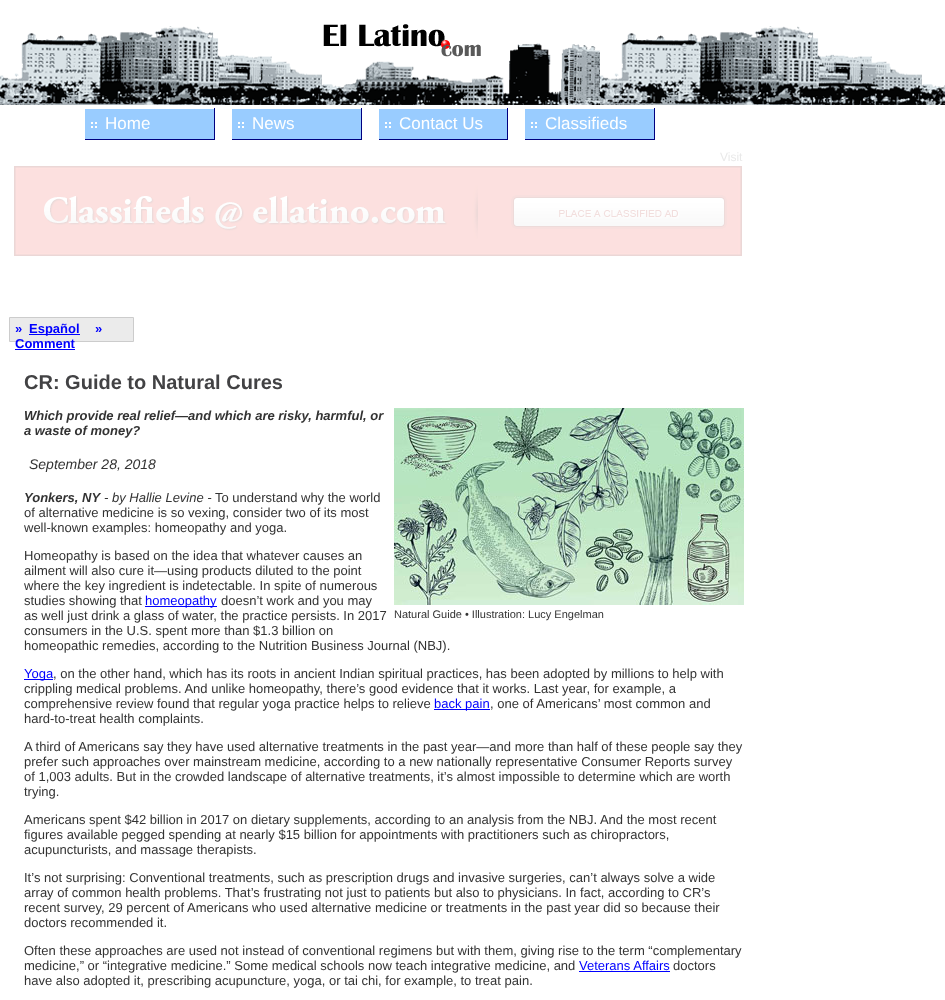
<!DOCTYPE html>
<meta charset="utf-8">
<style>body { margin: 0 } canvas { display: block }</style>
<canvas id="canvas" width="945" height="1000"></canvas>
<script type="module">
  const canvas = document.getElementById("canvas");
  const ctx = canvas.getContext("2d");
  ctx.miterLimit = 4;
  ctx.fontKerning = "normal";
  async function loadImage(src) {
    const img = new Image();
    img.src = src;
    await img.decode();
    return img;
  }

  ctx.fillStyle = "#ffffff";
  ctx.fillRect(0, 0, 945, 1000);
  ctx.drawImage(await loadImage("img1.png"), 0, 0, 945, 5);
  ctx.drawImage(await loadImage("img2.png"), 0, 26, 945, 79);
  ctx.drawImage(await loadImage("img3.png"), 323, 24, 158, 33);
  ctx.fillStyle = "#99ccff";
  ctx.fillRect(85, 109, 129, 30);
  ctx.drawImage(await loadImage("img4.png"), 91, 122, 6, 6);
  ctx.fillStyle = "#000080";
  ctx.fillRect(214, 108, 1, 32);
  ctx.fillRect(84, 139, 131, 1);
  ctx.fillStyle = "#ffffff";
  ctx.fillRect(84, 139, 1, 1);
  ctx.font = "17px Liberation Sans";
  ctx.fillText("Home", 105, 129);
  ctx.fillStyle = "#99ccff";
  ctx.fillRect(232, 109, 129, 30);
  ctx.drawImage(await loadImage("img4.png"), 238, 122, 6, 6);
  ctx.fillStyle = "#000080";
  ctx.fillRect(361, 108, 1, 32);
  ctx.fillRect(231, 139, 131, 1);
  ctx.fillStyle = "#ffffff";
  ctx.fillRect(231, 139, 1, 1);
  ctx.fillText("News", 252, 129);
  ctx.fillStyle = "#99ccff";
  ctx.fillRect(379, 109, 128, 30);
  ctx.drawImage(await loadImage("img4.png"), 385, 122, 6, 6);
  ctx.fillStyle = "#000080";
  ctx.fillRect(507, 108, 1, 32);
  ctx.fillRect(378, 139, 130, 1);
  ctx.fillStyle = "#ffffff";
  ctx.fillRect(378, 139, 1, 1);
  ctx.fillText("Contact Us", 399, 129);
  ctx.fillStyle = "#99ccff";
  ctx.fillRect(525, 109, 129, 30);
  ctx.drawImage(await loadImage("img4.png"), 531, 122, 6, 6);
  ctx.fillStyle = "#000080";
  ctx.fillRect(654, 108, 1, 32);
  ctx.fillRect(524, 139, 131, 1);
  ctx.fillStyle = "#ffffff";
  ctx.fillRect(524, 139, 1, 1);
  ctx.fillText("Classifieds", 545, 129);
  ctx.font = "12px Liberation Sans";
  ctx.fillStyle = "#e9e9e9";
  ctx.fillText("Visit", 720, 161);
  ctx.drawImage(await loadImage("img5.png"), 14, 166, 728, 90);
  ctx.fillStyle = "#ebebeb";
  ctx.beginPath();
  ctx.rect(9.5, 317.5, 124, 24);
  ctx.fill();
  ctx.strokeStyle = "#cccccc";
  ctx.stroke();
  ctx.font = "bold 13px Liberation Sans";
  ctx.fillStyle = "#0000ff";
  ctx.fillText("»", 15, 333);
  ctx.fillRect(29, 334, 51, 1);
  ctx.fillText("Español", 29, 333);
  ctx.fillText("»", 95, 333);
  ctx.fillText("Comment", 15, 348);
  ctx.fillRect(15, 349, 60, 1);
  ctx.font = "bold 20px Liberation Sans";
  ctx.fillStyle = "#424244";
  ctx.fillText("CR: Guide to Natural Cures", 24, 389);
  ctx.font = "italic bold 13px Liberation Sans";
  ctx.fillStyle = "#333333";
  ctx.fillText("Which provide real relief—and which are risky, harmful, or", 24, 420);
  ctx.fillText("a waste of money?", 24, 435);
  ctx.font = "italic 14px Liberation Sans";
  ctx.fillText("September 28, 2018", 29, 469);
  ctx.font = "italic bold 13px Liberation Sans";
  ctx.fillText("Yonkers, NY", 24, 502);
  ctx.font = "italic 13px Liberation Sans";
  ctx.fillText("- by Hallie Levine -", 104, 502);
  ctx.font = "13px Liberation Sans";
  ctx.fillText("To understand why the world", 215, 502);
  ctx.fillText("of alternative medicine is so vexing, consider two of its most", 24, 517);
  ctx.fillText("well-known examples: homeopathy and yoga.", 24, 532);
  ctx.fillText("Homeopathy is based on the idea that whatever causes an", 24, 560);
  ctx.fillText("ailment will also cure it—using products diluted to the point", 24, 575);
  ctx.fillText("where the key ingredient is indetectable. In spite of numerous", 24, 590);
  ctx.fillText("studies showing that", 24, 605);
  ctx.fillStyle = "#0000ff";
  ctx.fillRect(145, 606, 72, 1);
  ctx.fillText("homeopathy", 145, 605);
  ctx.fillStyle = "#333333";
  ctx.fillText("doesn’t work and you may", 221, 605);
  ctx.fillText("as well just drink a glass of water, the practice persists. In 2017", 24, 620);
  ctx.fillText("consumers in the U.S. spent more than $1.3 billion on", 24, 635);
  ctx.fillText("homeopathic remedies, according to the Nutrition Business Journal (NBJ).", 24, 650);
  ctx.drawImage(await loadImage("img6.png"), 394, 408, 350, 197);
  ctx.font = "11px Liberation Sans";
  ctx.fillText("Natural Guide • Illustration: Lucy Engelman", 394, 618);
  ctx.fillStyle = "#0000ff";
  ctx.fillRect(24, 679, 29, 1);
  ctx.font = "13px Liberation Sans";
  ctx.fillText("Yoga", 24, 678);
  ctx.fillStyle = "#333333";
  ctx.fillText(", on the other hand, which has its roots in ancient Indian spiritual practices, has been adopted by millions to help with", 53, 678);
  ctx.fillText("crippling medical problems. And unlike homeopathy, there’s good evidence that it works. Last year, for example, a", 24, 693);
  ctx.fillText("comprehensive review found that regular yoga practice helps to relieve", 24, 708);
  ctx.fillStyle = "#0000ff";
  ctx.fillRect(434, 709, 56, 1);
  ctx.fillText("back pain", 434, 708);
  ctx.fillStyle = "#333333";
  ctx.fillText(", one of Americans’ most common and", 490, 708);
  ctx.fillText("hard-to-treat health complaints.", 24, 723);
  ctx.fillText("A third of Americans say they have used alternative treatments in the past year—and more than half of these people say they", 24, 751);
  ctx.fillText("prefer such approaches over mainstream medicine, according to a new nationally representative Consumer Reports survey", 24, 766);
  ctx.fillText("of 1,003 adults. But in the crowded landscape of alternative treatments, it’s almost impossible to determine which are worth", 24, 781);
  ctx.fillText("trying.", 24, 796);
  ctx.fillText("Americans spent $42 billion in 2017 on dietary supplements, according to an analysis from the NBJ. And the most recent", 24, 824);
  ctx.fillText("figures available pegged spending at nearly $15 billion for appointments with practitioners such as chiropractors,", 24, 839);
  ctx.fillText("acupuncturists, and massage therapists.", 24, 854);
  ctx.fillText("It’s not surprising: Conventional treatments, such as prescription drugs and invasive surgeries, can’t always solve a wide", 24, 882);
  ctx.fillText("array of common health problems. That’s frustrating not just to patients but also to physicians. In fact, according to CR’s", 24, 897);
  ctx.fillText("recent survey, 29 percent of Americans who used alternative medicine or treatments in the past year did so because their", 24, 912);
  ctx.fillText("doctors recommended it.", 24, 927);
  ctx.fillText("Often these approaches are used not instead of conventional regimens but with them, giving rise to the term “complementary", 24, 955);
  ctx.fillText("medicine,” or “integrative medicine.” Some medical schools now teach integrative medicine, and", 24, 970);
  ctx.fillStyle = "#0000ff";
  ctx.fillText("Veterans Affairs", 579, 970);
  ctx.fillRect(579, 971, 91, 1);
  ctx.fillStyle = "#333333";
  ctx.fillText("doctors", 673, 970);
  ctx.fillText("have also adopted it, prescribing acupuncture, yoga, or tai chi, for example, to treat pain.", 24, 985);
</script>
